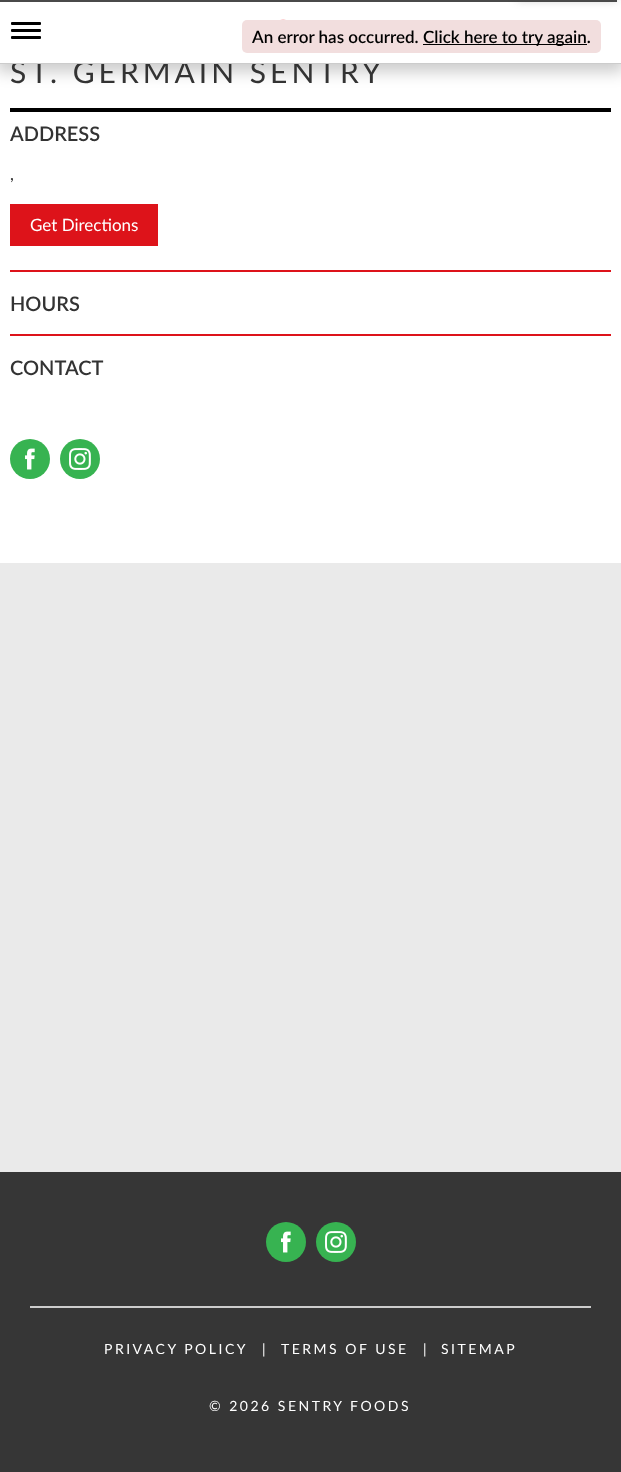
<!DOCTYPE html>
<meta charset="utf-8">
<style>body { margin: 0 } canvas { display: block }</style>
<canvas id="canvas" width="621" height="1472"></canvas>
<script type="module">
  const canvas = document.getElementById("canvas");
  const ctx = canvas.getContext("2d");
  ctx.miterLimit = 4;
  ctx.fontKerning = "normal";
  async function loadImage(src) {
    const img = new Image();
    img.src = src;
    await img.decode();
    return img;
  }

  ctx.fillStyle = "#eaeaea";
  ctx.fillRect(0, 0, 621, 1472);
  ctx.fillStyle = "#ffffff";
  ctx.fillRect(0, 64, 621, 499);
  ctx.fillStyle = "rgba(0, 0, 0, 0.2)";
  ctx.filter = "blur(7.5px)";
  ctx.beginPath();
  ctx.rect(-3, 2, 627, 70);
  ctx.fill();
  ctx.filter = "none";
  ctx.letterSpacing = "4px";
  ctx.font = "30px Lato";
  ctx.fillStyle = "#333333";
  ctx.fillText("ST. GERMAIN SENTRY", 10, 83);
  ctx.fillStyle = "#ffffff";
  ctx.fillRect(0, 0, 621, 63);
  ctx.fillStyle = "#4a4a4a";
  ctx.fillRect(0, 0, 617, 2);
  ctx.filter = "blur(5px)";
  ctx.beginPath();
  ctx.rect(517, -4, 100, 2);
  ctx.fill();
  ctx.filter = "none";
  ctx.fillStyle = "#f2dede";
  ctx.beginPath();
  ctx.roundRect(242, 20, 359, 33, 5);
  ctx.fill();
  ctx.letterSpacing = "0px";
  ctx.font = "600 17px Lato";
  ctx.fillStyle = "#000000";
  ctx.fillText("An error has occurred.", 252, 43);
  ctx.fillRect(423, 44, 164, 1);
  ctx.fillText("Click here to try again.", 423, 43);
  ctx.fillStyle = "#cccccc";
  ctx.fillRect(0, 63, 621, 1);
  ctx.drawImage(await loadImage("img1.png"), 280, 19, 6, 1);
  ctx.fillStyle = "#000000";
  ctx.beginPath();
  ctx.roundRect(11, 22, 30, 3, 1);
  ctx.fill();
  ctx.beginPath();
  ctx.roundRect(11, 29, 30, 3, 1);
  ctx.fill();
  ctx.beginPath();
  ctx.roundRect(11, 36, 30, 3, 1);
  ctx.fill();
  ctx.fillRect(10, 108, 601, 4);
  ctx.font = "600 20px Lato";
  ctx.fillStyle = "#333333";
  ctx.fillText("ADDRESS", 10, 141);
  ctx.font = "17px Lato";
  ctx.fillText(",", 10, 180);
  ctx.fillStyle = "#dd131a";
  ctx.fillRect(10, 204, 148, 42);
  ctx.fillStyle = "#ffffff";
  ctx.fillText("Get Directions", 30, 231);
  ctx.fillStyle = "#dd131a";
  ctx.fillRect(10, 270, 601, 2);
  ctx.font = "600 20px Lato";
  ctx.fillStyle = "#333333";
  ctx.fillText("HOURS", 10, 311);
  ctx.fillStyle = "#dd131a";
  ctx.fillRect(10, 334, 601, 2);
  ctx.fillStyle = "#333333";
  ctx.fillText("CONTACT", 10, 375);
  ctx.fillStyle = "#37b351";
  ctx.beginPath();
  ctx.arc(30, 459, 20, 0, Math.PI * 2);
  ctx.fill();
  ctx.drawImage(await loadImage("img2.png"), 25, 448, 10, 22);
  ctx.beginPath();
  ctx.arc(80, 459, 20, 0, Math.PI * 2);
  ctx.fill();
  ctx.drawImage(await loadImage("img3.png"), 69, 448, 22, 22);
  ctx.fillStyle = "#363636";
  ctx.fillRect(0, 1172, 621, 300);
  ctx.fillStyle = "#37b351";
  ctx.beginPath();
  ctx.arc(286, 1242, 20, 0, Math.PI * 2);
  ctx.fill();
  ctx.drawImage(await loadImage("img2.png"), 281, 1231, 10, 22);
  ctx.beginPath();
  ctx.arc(336, 1242, 20, 0, Math.PI * 2);
  ctx.fill();
  ctx.drawImage(await loadImage("img3.png"), 325, 1231, 22, 22);
  ctx.fillStyle = "#cccccc";
  ctx.fillRect(30, 1306, 561, 2);
  ctx.letterSpacing = "2.5px";
  ctx.font = "14px Lato";
  ctx.fillStyle = "#ffffff";
  ctx.fillText("PRIVACY POLICY", 104, 1354);
  ctx.letterSpacing = "0px";
  ctx.fillText("|", 262, 1354);
  ctx.letterSpacing = "2.5px";
  ctx.fillText("TERMS OF USE", 281, 1354);
  ctx.letterSpacing = "0px";
  ctx.fillText("|", 423, 1354);
  ctx.letterSpacing = "2.5px";
  ctx.fillText("SITEMAP", 441, 1354);
  ctx.fillText("© 2026 SENTRY FOODS", 209, 1411);
</script>
